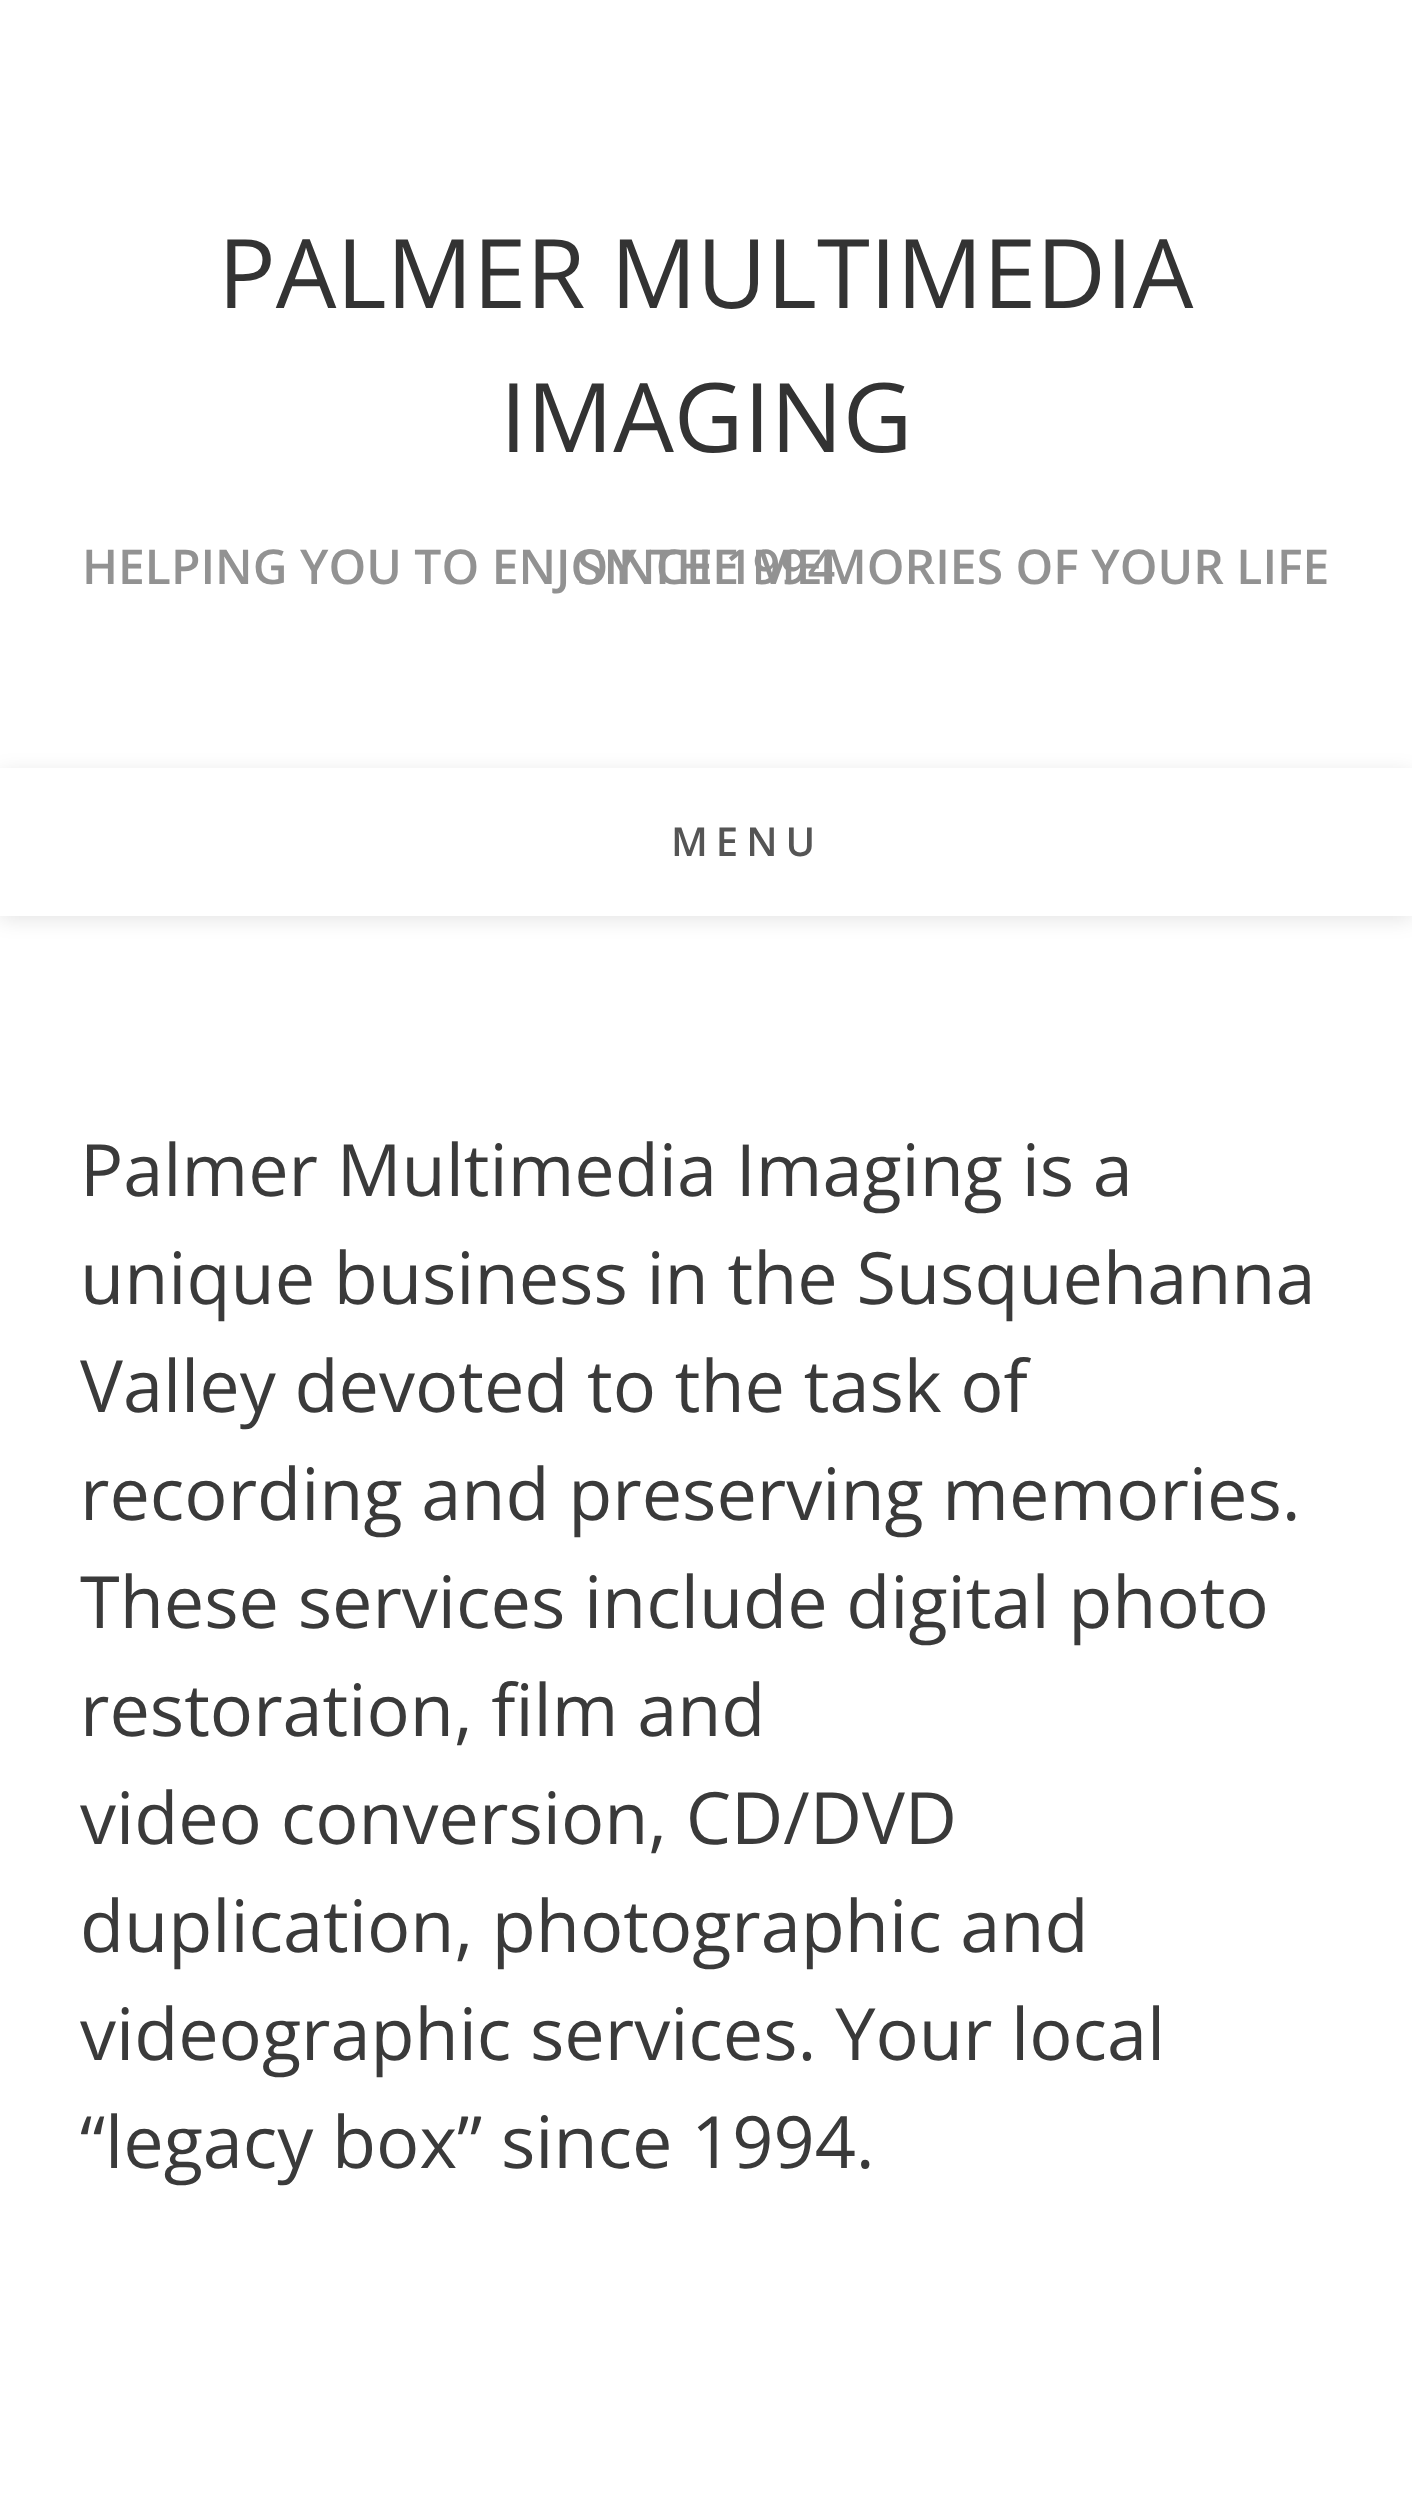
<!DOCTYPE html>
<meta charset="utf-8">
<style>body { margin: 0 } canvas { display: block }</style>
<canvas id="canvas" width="1412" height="2508"></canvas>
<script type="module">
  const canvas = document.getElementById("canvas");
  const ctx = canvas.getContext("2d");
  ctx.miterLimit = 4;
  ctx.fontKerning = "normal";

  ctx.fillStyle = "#ffffff";
  ctx.fillRect(0, 0, 1412, 2508);
  ctx.font = "96px Open Sans";
  ctx.fillStyle = "#333333";
  ctx.fillText("PALMER MULTIMEDIA", 218, 308);
  ctx.fillText("IMAGING", 500, 452);
  ctx.font = "600 48px Open Sans";
  ctx.fillStyle = "#929292";
  ctx.fillText("HELPING YOU TO ENJOY THE MEMORIES OF YOUR LIFE", 82, 584);
  ctx.fillText("SINCE 1994", 577, 584);
  ctx.save();
  ctx.beginPath();
  ctx.moveTo(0, 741);
  ctx.lineTo(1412, 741);
  ctx.lineTo(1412, 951);
  ctx.lineTo(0, 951);
  ctx.closePath();
  ctx.moveTo(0, 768);
  ctx.lineTo(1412, 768);
  ctx.lineTo(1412, 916);
  ctx.lineTo(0, 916);
  ctx.closePath();
  ctx.clip("evenodd");
  ctx.fillStyle = "rgba(0, 0, 0, 0.1)";
  ctx.filter = "blur(10px)";
  ctx.beginPath();
  ctx.rect(0, 772, 1412, 148);
  ctx.fill();
  ctx.filter = "none";
  ctx.restore();
  ctx.letterSpacing = "8px";
  ctx.font = "600 40px Open Sans";
  ctx.fillStyle = "#555555";
  ctx.fillText("MENU", 671, 856);
  ctx.letterSpacing = "0px";
  ctx.font = "72px Open Sans";
  ctx.fillStyle = "#3a3a3a";
  ctx.fillText("Palmer Multimedia Imaging is a", 80, 1196);
  ctx.fillText("unique business in the Susquehanna", 80, 1304);
  ctx.fillText("Valley devoted to the task of", 80, 1412);
  ctx.fillText("recording and preserving memories.", 80, 1520);
  ctx.fillText("These services include digital photo", 80, 1628);
  ctx.fillText("restoration, film and", 80, 1736);
  ctx.fillText("video conversion, CD/DVD", 80, 1844);
  ctx.fillText("duplication, photographic and", 80, 1952);
  ctx.fillText("videographic services. Your local", 80, 2060);
  ctx.fillText("“legacy box” since 1994.", 80, 2168);
</script>
